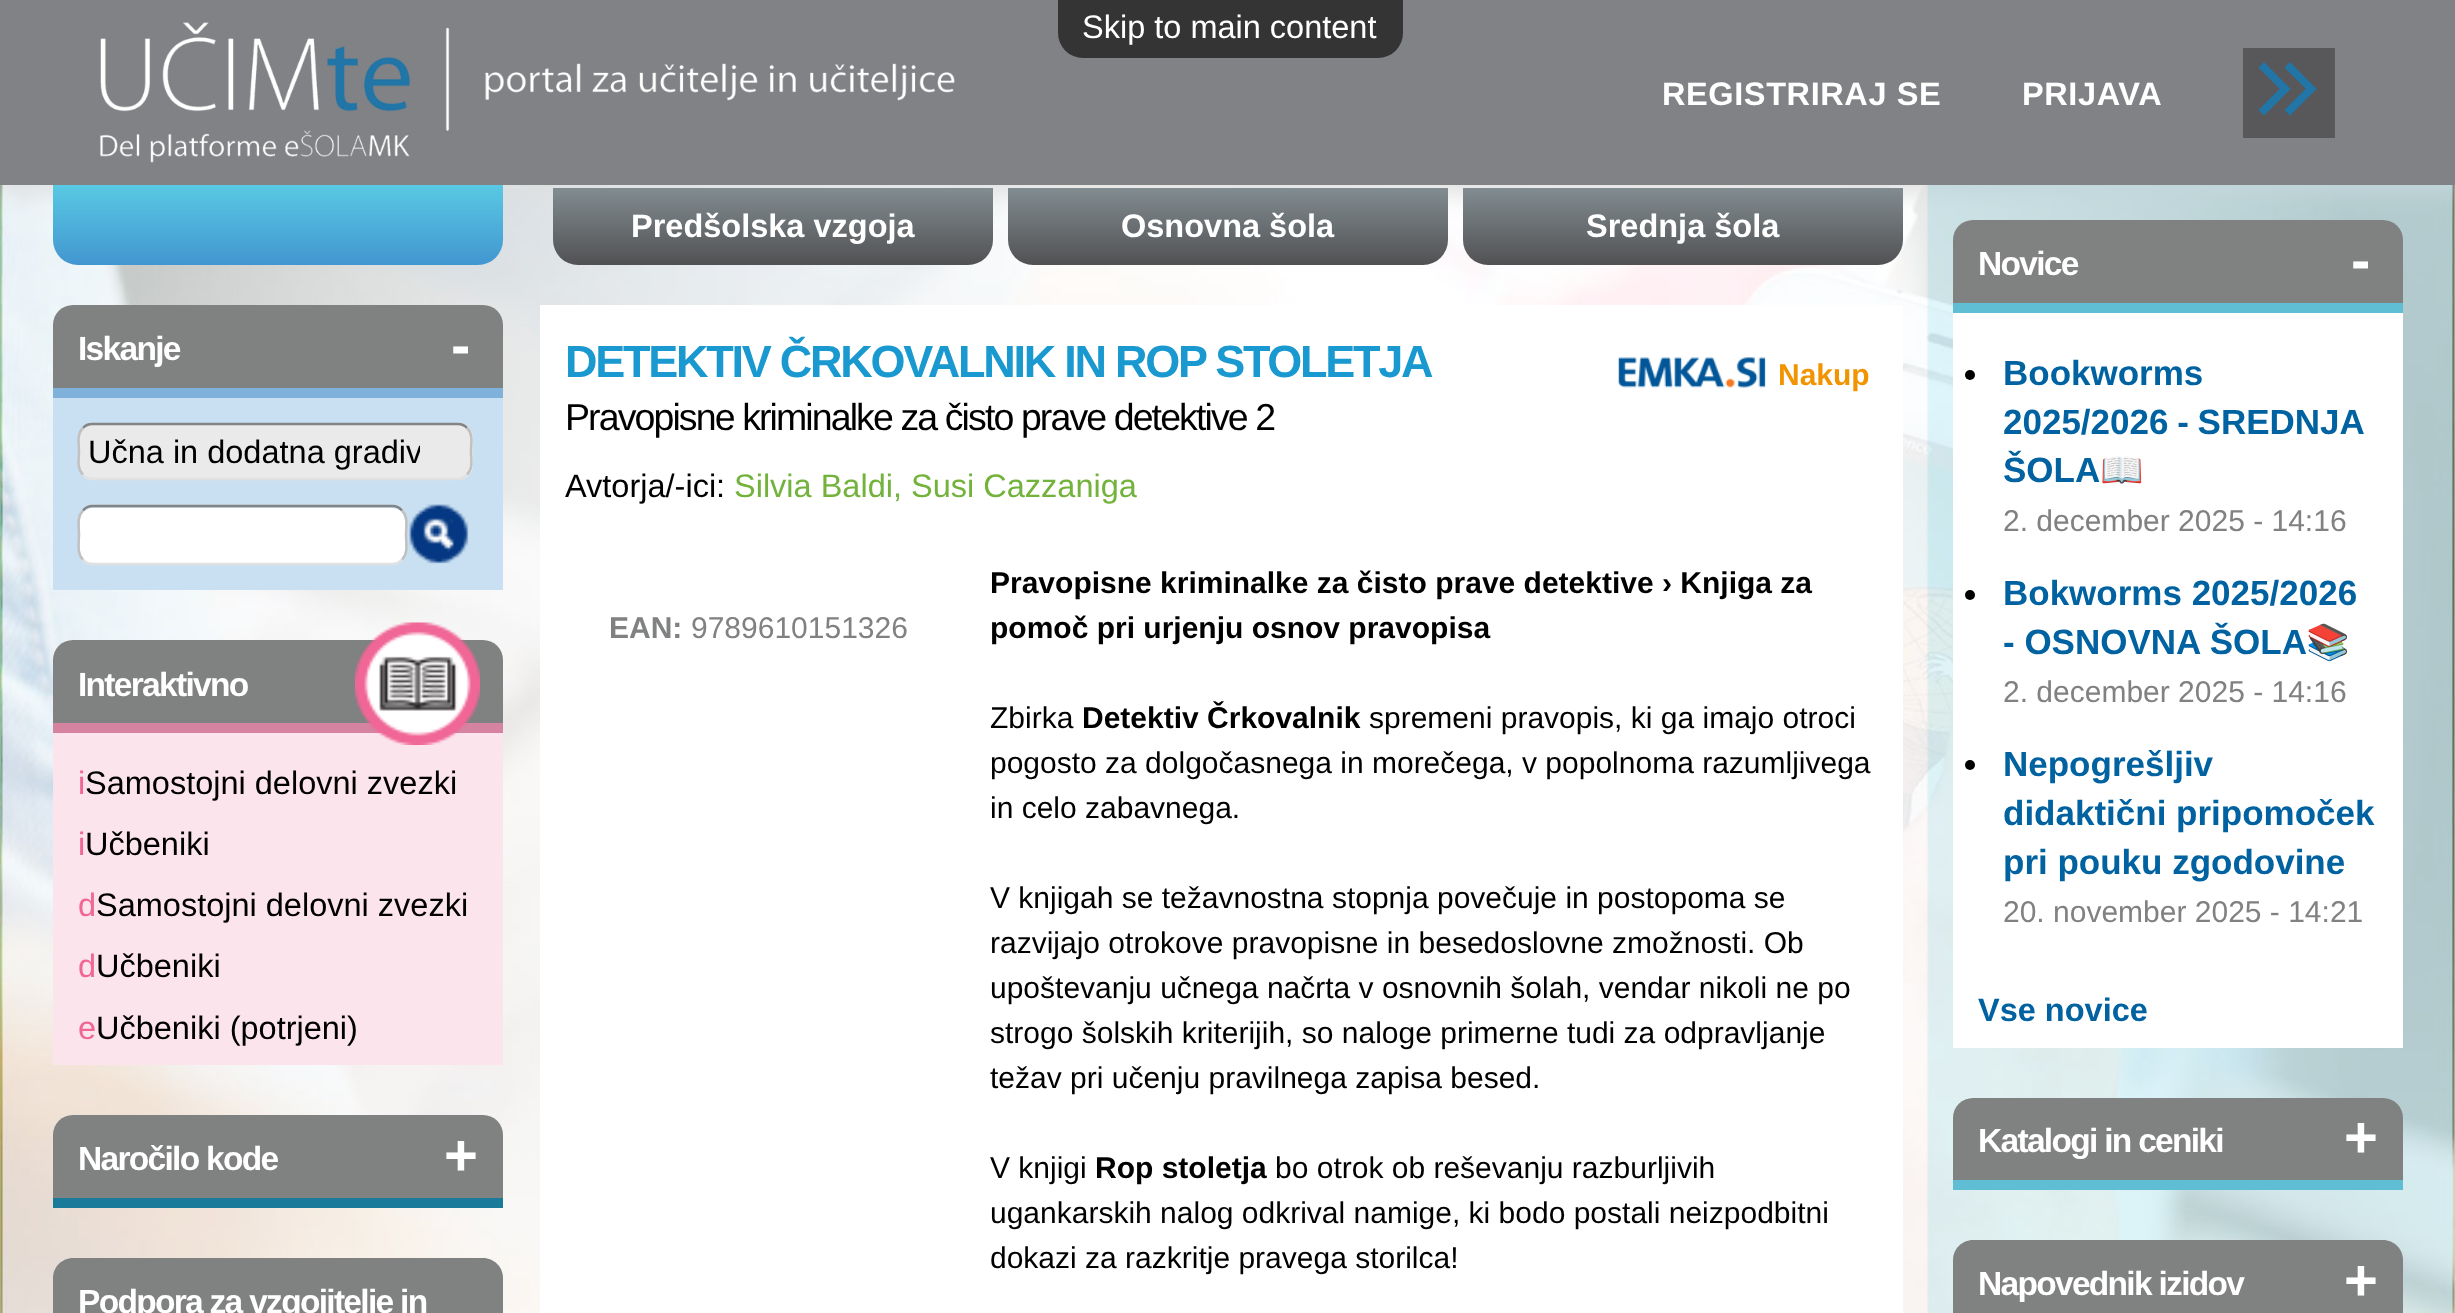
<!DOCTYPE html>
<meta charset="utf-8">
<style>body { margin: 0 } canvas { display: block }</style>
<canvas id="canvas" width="2455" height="1313"></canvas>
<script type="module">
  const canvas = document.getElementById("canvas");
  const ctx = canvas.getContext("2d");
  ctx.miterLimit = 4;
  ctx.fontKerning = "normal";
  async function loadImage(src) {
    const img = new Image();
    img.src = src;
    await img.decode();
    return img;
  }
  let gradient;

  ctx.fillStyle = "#ffffff";
  ctx.fillRect(0, 0, 2455, 1313);
  ctx.drawImage(await loadImage("img1.png"), 0, 185, 2455, 1128);
  ctx.fillStyle = "#969696";
  ctx.filter = "blur(12.5px)";
  ctx.beginPath();
  ctx.rect(-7, -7, 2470, 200);
  ctx.fill();
  ctx.filter = "none";
  ctx.fillStyle = "#818285";
  ctx.fillRect(0, 0, 2455, 185);
  ctx.fillStyle = "#343435";
  ctx.beginPath();
  ctx.roundRect(1058, 0, 345, 58, [0, 0, 25, 25]);
  ctx.fill();
  ctx.font = "32.5px Liberation Sans";
  ctx.fillStyle = "#ffffff";
  ctx.fillText("Skip to main content", 1082, 38);
  ctx.drawImage(await loadImage("img2.png"), 100, 22, 855, 141);
  ctx.letterSpacing = "0.6px";
  ctx.font = "bold 32.5px Liberation Sans";
  ctx.fillText("REGISTRIRAJ SE", 1662, 105);
  ctx.fillText("PRIJAVA", 2022, 105);
  ctx.fillStyle = "#58585a";
  ctx.fillRect(2243, 48, 92, 90);
  ctx.fillStyle = "#2175a7";
  ctx.beginPath();
  ctx.moveTo(2258.5, 67.5);
  ctx.lineTo(2264, 62);
  ctx.lineTo(2290.5, 89);
  ctx.lineTo(2285, 94);
  ctx.closePath();
  ctx.fill();
  ctx.beginPath();
  ctx.moveTo(2258.5, 110);
  ctx.lineTo(2285, 83.5);
  ctx.lineTo(2290.5, 89);
  ctx.lineTo(2264, 115.5);
  ctx.closePath();
  ctx.fill();
  ctx.beginPath();
  ctx.moveTo(2284.5, 67.5);
  ctx.lineTo(2290, 62);
  ctx.lineTo(2316.5, 89);
  ctx.lineTo(2311, 94);
  ctx.closePath();
  ctx.fill();
  ctx.beginPath();
  ctx.moveTo(2284.5, 110);
  ctx.lineTo(2311, 83.5);
  ctx.lineTo(2316.5, 89);
  ctx.lineTo(2290, 115.5);
  ctx.closePath();
  ctx.fill();
  ctx.drawImage(await loadImage("img3.png"), 2, 185, 2451, 120);
  gradient = ctx.createLinearGradient(278, 185, 278, 265);
  gradient.addColorStop(0, "#59c9e3");
  gradient.addColorStop(1, "#4296d0");
  ctx.fillStyle = gradient;
  ctx.beginPath();
  ctx.roundRect(53, 185, 450, 80, [0, 0, 25, 25]);
  ctx.fill();
  gradient = ctx.createLinearGradient(773, 187, 773, 265);
  gradient.addColorStop(0, "#828d92");
  gradient.addColorStop(1, "#515153");
  ctx.fillStyle = gradient;
  ctx.beginPath();
  ctx.roundRect(553, 188, 440, 77, [0, 0, 25, 25]);
  ctx.fill();
  ctx.letterSpacing = "0px";
  ctx.fillStyle = "#ffffff";
  ctx.fillText("Predšolska vzgoja", 631, 237);
  gradient = ctx.createLinearGradient(1228, 187, 1228, 265);
  gradient.addColorStop(0, "#828d92");
  gradient.addColorStop(1, "#515153");
  ctx.fillStyle = gradient;
  ctx.beginPath();
  ctx.roundRect(1008, 188, 440, 77, [0, 0, 25, 25]);
  ctx.fill();
  ctx.fillStyle = "#ffffff";
  ctx.fillText("Osnovna šola", 1121, 237);
  gradient = ctx.createLinearGradient(1683, 187, 1683, 265);
  gradient.addColorStop(0, "#828d92");
  gradient.addColorStop(1, "#515153");
  ctx.fillStyle = gradient;
  ctx.beginPath();
  ctx.roundRect(1463, 188, 440, 77, [0, 0, 25, 25]);
  ctx.fill();
  ctx.fillStyle = "#ffffff";
  ctx.fillText("Srednja šola", 1586, 237);
  ctx.drawImage(await loadImage("img4.png"), 2, 305, 2451, 1008);
  ctx.fillStyle = "#808181";
  ctx.beginPath();
  ctx.roundRect(53, 305, 450, 93, [20, 20, 0, 0]);
  ctx.fill();
  ctx.fillStyle = "#7fb1da";
  ctx.fillRect(53, 388, 450, 10);
  ctx.letterSpacing = "-1.7px";
  ctx.font = "bold 33.5px Liberation Sans";
  ctx.fillStyle = "#ffffff";
  ctx.fillText("Iskanje", 78, 360);
  ctx.font = "bold 58px Liberation Sans";
  ctx.fillText("-", 451, 365);
  ctx.fillStyle = "#c8e0f2";
  ctx.fillRect(53, 398, 450, 192);
  ctx.fillStyle = "#eaeaeb";
  ctx.beginPath();
  ctx.roundRect(78, 423, 395, 57, 15);
  ctx.fill();
  ctx.beginPath();
  ctx.moveTo(83, 428);
  ctx.bezierCurveTo(85.5, 425, 89, 424, 92.5, 424);
  ctx.lineTo(457.5, 424);
  ctx.bezierCurveTo(461, 424, 464.5, 425, 467, 428);
  ctx.strokeStyle = "#848484";
  ctx.lineWidth = 2.5;
  ctx.stroke();
  ctx.beginPath();
  ctx.moveTo(467, 428);
  ctx.bezierCurveTo(473.5, 434, 471, 443.5, 471, 451);
  ctx.bezierCurveTo(471, 459, 473.5, 468.5, 467, 474.5);
  ctx.strokeStyle = "#c1c1c1";
  ctx.stroke();
  ctx.beginPath();
  ctx.moveTo(467, 474.5);
  ctx.bezierCurveTo(464.5, 477.5, 461, 479, 457.5, 479);
  ctx.lineTo(92.5, 479);
  ctx.bezierCurveTo(89, 479, 85.5, 477.5, 83, 474.5);
  ctx.strokeStyle = "#e1e1e1";
  ctx.stroke();
  ctx.beginPath();
  ctx.moveTo(83, 474.5);
  ctx.bezierCurveTo(76.5, 468.5, 79, 459, 79, 451);
  ctx.bezierCurveTo(79, 443.5, 76.5, 434, 83, 428);
  ctx.strokeStyle = "#c1c1c1";
  ctx.stroke();
  ctx.save();
  ctx.beginPath();
  ctx.rect(88, 433, 332, 37);
  ctx.clip();
  ctx.letterSpacing = "0px";
  ctx.font = "32.5px Liberation Sans";
  ctx.fillStyle = "#000000";
  ctx.fillText("Učna in dodatna gradiv", 88, 463);
  ctx.restore();
  ctx.fillStyle = "#ffffff";
  ctx.beginPath();
  ctx.roundRect(80, 508, 325, 55, 13);
  ctx.fill();
  ctx.beginPath();
  ctx.moveTo(83, 510.5);
  ctx.bezierCurveTo(85.5, 507.5, 89, 506, 92.5, 506);
  ctx.lineTo(392.5, 506);
  ctx.bezierCurveTo(396, 506, 399.5, 507.5, 402, 510.5);
  ctx.strokeStyle = "#848484";
  ctx.stroke();
  ctx.beginPath();
  ctx.moveTo(402, 510.5);
  ctx.bezierCurveTo(408.5, 516.5, 406, 527.5, 406, 535);
  ctx.bezierCurveTo(406, 542.5, 408.5, 553.5, 402, 559.5);
  ctx.strokeStyle = "#c1c1c1";
  ctx.stroke();
  ctx.beginPath();
  ctx.moveTo(402, 559.5);
  ctx.bezierCurveTo(399.5, 562.5, 396, 564, 392.5, 564);
  ctx.lineTo(92.5, 564);
  ctx.bezierCurveTo(89, 564, 85.5, 562.5, 83, 559.5);
  ctx.strokeStyle = "#e1e1e1";
  ctx.stroke();
  ctx.beginPath();
  ctx.moveTo(83, 559.5);
  ctx.bezierCurveTo(76.5, 553.5, 79, 542.5, 79, 535);
  ctx.bezierCurveTo(79, 527.5, 76.5, 516.5, 83, 510.5);
  ctx.strokeStyle = "#c1c1c1";
  ctx.stroke();
  ctx.drawImage(await loadImage("img5.png"), 409, 504, 60, 60);
  ctx.fillStyle = "#808181";
  ctx.beginPath();
  ctx.roundRect(53, 640, 450, 93, [20, 20, 0, 0]);
  ctx.fill();
  ctx.fillStyle = "#d683a1";
  ctx.fillRect(53, 723, 450, 10);
  ctx.font = "bold 33.5px Liberation Sans";
  ctx.fillStyle = "#ffffff";
  ctx.fillText("Interaktivno", 78, 696);
  ctx.fillStyle = "#fce4ec";
  ctx.fillRect(53, 733, 450, 332);
  ctx.drawImage(await loadImage("img6.png"), 355, 622, 125, 123);
  ctx.letterSpacing = "0px";
  ctx.font = "32.5px Liberation Sans";
  ctx.fillStyle = "#f06695";
  ctx.fillText("i", 78, 794);
  ctx.fillStyle = "#000000";
  ctx.fillText("Samostojni delovni zvezki", 85, 794);
  ctx.fillStyle = "#f06695";
  ctx.fillText("i", 78, 855);
  ctx.fillStyle = "#000000";
  ctx.fillText("Učbeniki", 85, 855);
  ctx.fillStyle = "#f06695";
  ctx.fillText("d", 78, 916);
  ctx.fillStyle = "#000000";
  ctx.fillText("Samostojni delovni zvezki", 96, 916);
  ctx.fillStyle = "#f06695";
  ctx.fillText("d", 78, 977);
  ctx.fillStyle = "#000000";
  ctx.fillText("Učbeniki", 96, 977);
  ctx.fillStyle = "#f06695";
  ctx.fillText("e", 78, 1039);
  ctx.fillStyle = "#000000";
  ctx.fillText("Učbeniki (potrjeni)", 96, 1039);
  ctx.fillStyle = "#808181";
  ctx.beginPath();
  ctx.roundRect(53, 1115, 450, 93, [20, 20, 0, 0]);
  ctx.fill();
  ctx.fillStyle = "#197a99";
  ctx.fillRect(53, 1198, 450, 10);
  ctx.letterSpacing = "-1.7px";
  ctx.font = "bold 33.5px Liberation Sans";
  ctx.fillStyle = "#ffffff";
  ctx.fillText("Naročilo kode", 78, 1170);
  ctx.font = "bold 58px Liberation Sans";
  ctx.fillText("+", 444, 1175);
  ctx.fillStyle = "#808181";
  ctx.beginPath();
  ctx.moveTo(73, 1258);
  ctx.lineTo(483, 1258);
  ctx.bezierCurveTo(494, 1258, 503, 1267, 503, 1278);
  ctx.lineTo(503, 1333);
  ctx.lineTo(53, 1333);
  ctx.lineTo(53, 1278);
  ctx.bezierCurveTo(53, 1267, 62, 1258, 73, 1258);
  ctx.closePath();
  ctx.fill();
  ctx.font = "bold 33.5px Liberation Sans";
  ctx.fillStyle = "#ffffff";
  ctx.fillText("Podpora za vzgojitelje in", 78, 1313);
  ctx.fillRect(540, 305, 1363, 1008);
  ctx.letterSpacing = "-2.25px";
  ctx.font = "bold 45px Liberation Sans";
  ctx.fillStyle = "#1999cf";
  ctx.fillText("DETEKTIV ČRKOVALNIK IN ROP STOLETJA", 565, 377);
  ctx.drawImage(await loadImage("img7.png"), 1618, 357, 148, 31);
  ctx.letterSpacing = "0px";
  ctx.font = "bold 30px Liberation Sans";
  ctx.fillStyle = "#f29400";
  ctx.fillText("Nakup", 1778, 385);
  ctx.letterSpacing = "-1.9px";
  ctx.font = "37.5px Liberation Sans";
  ctx.fillStyle = "#000000";
  ctx.fillText("Pravopisne kriminalke za čisto prave detektive 2", 565, 430);
  ctx.letterSpacing = "0px";
  ctx.font = "32.5px Liberation Sans";
  ctx.fillText("Avtorja/-ici:", 565, 497);
  ctx.fillStyle = "#73b23b";
  ctx.fillText("Silvia Baldi, Susi Cazzaniga", 734, 497);
  ctx.font = "bold 30px Liberation Sans";
  ctx.fillStyle = "#808181";
  ctx.fillText("EAN:", 609, 638);
  ctx.font = "30px Liberation Sans";
  ctx.fillText("9789610151326", 691, 638);
  ctx.font = "bold 30px Liberation Sans";
  ctx.fillStyle = "#000000";
  ctx.fillText("Pravopisne kriminalke za čisto prave detektive › Knjiga za", 990, 593);
  ctx.fillText("pomoč pri urjenju osnov pravopisa", 990, 638);
  ctx.font = "30px Liberation Sans";
  ctx.fillText("Zbirka", 990, 728);
  ctx.font = "bold 30px Liberation Sans";
  ctx.fillText("Detektiv Črkovalnik", 1082, 728);
  ctx.font = "30px Liberation Sans";
  ctx.fillText("spremeni pravopis, ki ga imajo otroci", 1369, 728);
  ctx.fillText("pogosto za dolgočasnega in morečega, v popolnoma razumljivega", 990, 773);
  ctx.fillText("in celo zabavnega.", 990, 818);
  ctx.fillText("V knjigah se težavnostna stopnja povečuje in postopoma se", 990, 908);
  ctx.fillText("razvijajo otrokove pravopisne in besedoslovne zmožnosti. Ob", 990, 953);
  ctx.fillText("upoštevanju učnega načrta v osnovnih šolah, vendar nikoli ne po", 990, 998);
  ctx.fillText("strogo šolskih kriterijih, so naloge primerne tudi za odpravljanje", 990, 1043);
  ctx.fillText("težav pri učenju pravilnega zapisa besed.", 990, 1088);
  ctx.fillText("V knjigi", 990, 1178);
  ctx.font = "bold 30px Liberation Sans";
  ctx.fillText("Rop stoletja", 1095, 1178);
  ctx.font = "30px Liberation Sans";
  ctx.fillText("bo otrok ob reševanju razburljivih", 1275, 1178);
  ctx.fillText("ugankarskih nalog odkrival namige, ki bodo postali neizpodbitni", 990, 1223);
  ctx.fillText("dokazi za razkritje pravega storilca!", 990, 1268);
  ctx.fillStyle = "#808181";
  ctx.beginPath();
  ctx.roundRect(1953, 220, 450, 93, [20, 20, 0, 0]);
  ctx.fill();
  ctx.fillStyle = "#5fbed3";
  ctx.fillRect(1953, 303, 450, 10);
  ctx.letterSpacing = "-1.7px";
  ctx.font = "bold 33.5px Liberation Sans";
  ctx.fillStyle = "#ffffff";
  ctx.fillText("Novice", 1978, 275);
  ctx.font = "bold 58px Liberation Sans";
  ctx.fillText("-", 2351, 280);
  ctx.fillRect(1953, 313, 450, 735);
  ctx.fillStyle = "#000000";
  ctx.beginPath();
  ctx.arc(1970, 375, 5, 0, Math.PI * 2);
  ctx.fill();
  ctx.letterSpacing = "0px";
  ctx.font = "bold 35px Liberation Sans";
  ctx.fillStyle = "#0062a0";
  ctx.fillText("Bookworms", 2003, 385);
  ctx.wordSpacing = "-1px";
  ctx.fillText("2025/2026 - SREDNJA", 2003, 434);
  ctx.wordSpacing = "0px";
  ctx.fillText("ŠOLA", 2003, 482);
  ctx.font = "bold 35px Noto Color Emoji";
  ctx.fillText("📖", 2100, 482);
  ctx.font = "30px Liberation Sans";
  ctx.fillStyle = "#808181";
  ctx.fillText("2. december 2025 - 14:16", 2003, 531);
  ctx.fillStyle = "#000000";
  ctx.beginPath();
  ctx.arc(1970, 595, 5, 0, Math.PI * 2);
  ctx.fill();
  ctx.font = "bold 35px Liberation Sans";
  ctx.fillStyle = "#0062a0";
  ctx.fillText("Bokworms 2025/2026", 2003, 605);
  ctx.fillText("- OSNOVNA ŠOLA", 2003, 654);
  ctx.font = "bold 35px Noto Color Emoji";
  ctx.fillText("📚", 2306, 654);
  ctx.font = "30px Liberation Sans";
  ctx.fillStyle = "#808181";
  ctx.fillText("2. december 2025 - 14:16", 2003, 702);
  ctx.fillStyle = "#000000";
  ctx.beginPath();
  ctx.arc(1970, 765, 5, 0, Math.PI * 2);
  ctx.fill();
  ctx.font = "bold 35px Liberation Sans";
  ctx.fillStyle = "#0062a0";
  ctx.fillText("Nepogrešljiv", 2003, 776);
  ctx.fillText("didaktični pripomoček", 2003, 825);
  ctx.fillText("pri pouku zgodovine", 2003, 874);
  ctx.font = "30px Liberation Sans";
  ctx.fillStyle = "#808181";
  ctx.fillText("20. november 2025 - 14:21", 2003, 922);
  ctx.font = "bold 32.5px Liberation Sans";
  ctx.fillStyle = "#0062a0";
  ctx.fillText("Vse novice", 1978, 1021);
  ctx.fillStyle = "#808181";
  ctx.beginPath();
  ctx.roundRect(1953, 1098, 450, 92, [20, 20, 0, 0]);
  ctx.fill();
  ctx.fillStyle = "#5fbed3";
  ctx.fillRect(1953, 1180, 450, 10);
  ctx.letterSpacing = "-1.7px";
  ctx.font = "bold 33.5px Liberation Sans";
  ctx.fillStyle = "#ffffff";
  ctx.fillText("Katalogi in ceniki", 1978, 1152);
  ctx.font = "bold 58px Liberation Sans";
  ctx.fillText("+", 2344, 1157);
  ctx.fillStyle = "#808181";
  ctx.beginPath();
  ctx.moveTo(1973, 1240);
  ctx.lineTo(2383, 1240);
  ctx.bezierCurveTo(2394, 1240, 2403, 1249, 2403, 1260);
  ctx.lineTo(2403, 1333);
  ctx.lineTo(1953, 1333);
  ctx.lineTo(1953, 1260);
  ctx.bezierCurveTo(1953, 1249, 1962, 1240, 1973, 1240);
  ctx.closePath();
  ctx.fill();
  ctx.font = "bold 33.5px Liberation Sans";
  ctx.fillStyle = "#ffffff";
  ctx.fillText("Napovednik izidov", 1978, 1295);
  ctx.font = "bold 58px Liberation Sans";
  ctx.fillText("+", 2344, 1300);
</script>
